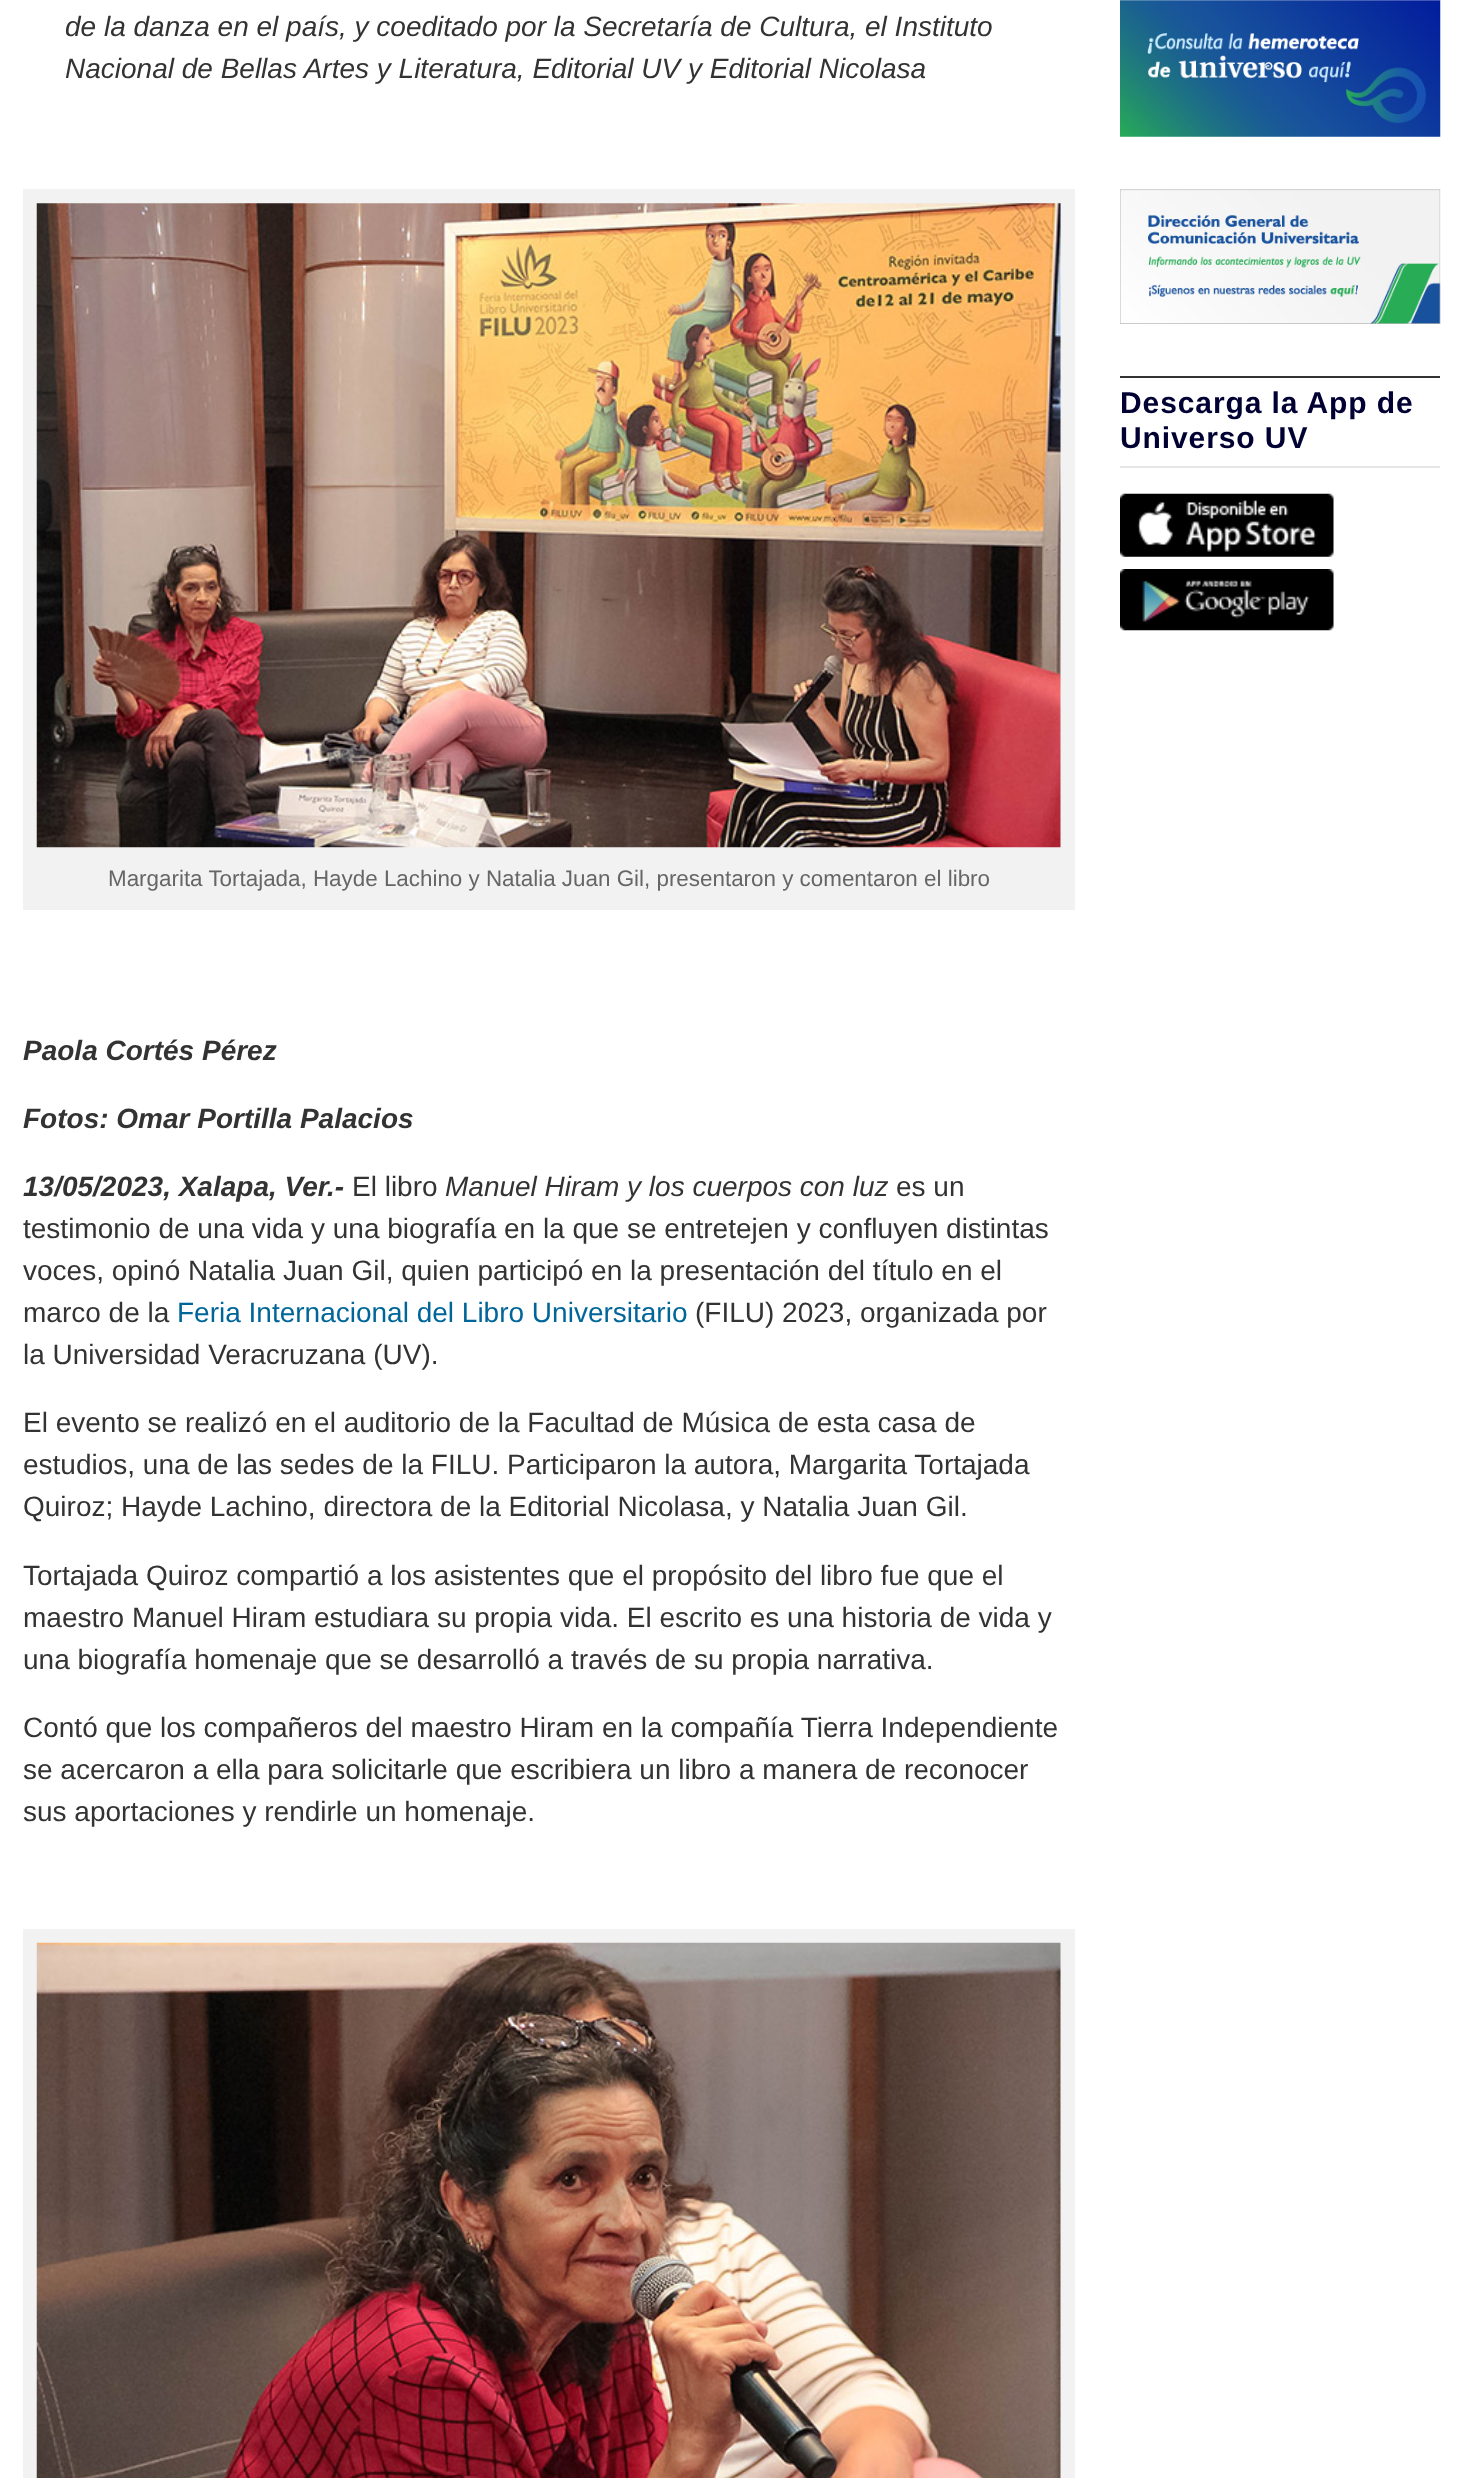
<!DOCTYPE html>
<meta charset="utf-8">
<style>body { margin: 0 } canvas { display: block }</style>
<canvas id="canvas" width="1462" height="2478"></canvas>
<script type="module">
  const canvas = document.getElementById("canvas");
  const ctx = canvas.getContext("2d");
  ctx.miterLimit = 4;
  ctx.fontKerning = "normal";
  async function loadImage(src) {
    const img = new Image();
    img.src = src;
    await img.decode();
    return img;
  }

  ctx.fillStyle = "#ffffff";
  ctx.fillRect(0, 0, 1462, 2478);
  ctx.font = "italic 28px Liberation Sans";
  ctx.fillStyle = "#333333";
  ctx.fillText("de la danza en el país, y coeditado por la Secretaría de Cultura, el Instituto", 65, 36);
  ctx.fillText("Nacional de Bellas Artes y Literatura, Editorial UV y Editorial Nicolasa", 65, 78);
  ctx.fillStyle = "#f2f2f2";
  ctx.fillRect(23, 189, 1052, 721);
  ctx.drawImage(await loadImage("img1.png"), 36, 203, 1025, 645);
  ctx.font = "22.4px Liberation Sans";
  ctx.fillStyle = "#666666";
  ctx.fillText("Margarita Tortajada, Hayde Lachino y Natalia Juan Gil, presentaron y comentaron el libro", 108, 886);
  ctx.font = "italic bold 28px Liberation Sans";
  ctx.fillStyle = "#333333";
  ctx.fillText("Paola Cortés Pérez", 23, 1060);
  ctx.fillText("Fotos: Omar Portilla Palacios", 23, 1128);
  ctx.fillText("13/05/2023, Xalapa, Ver.-", 23, 1196);
  ctx.font = "28px Liberation Sans";
  ctx.fillText("El libro", 352, 1196);
  ctx.font = "italic 28px Liberation Sans";
  ctx.fillText("Manuel Hiram y los cuerpos con luz", 445, 1196);
  ctx.font = "28px Liberation Sans";
  ctx.fillText("es un", 896, 1196);
  ctx.fillText("testimonio de una vida y una biografía en la que se entretejen y confluyen distintas", 23, 1238);
  ctx.fillText("voces, opinó Natalia Juan Gil, quien participó en la presentación del título en el", 23, 1280);
  ctx.fillText("marco de la", 23, 1322);
  ctx.fillStyle = "#006699";
  ctx.fillText("Feria Internacional del Libro Universitario", 177, 1322);
  ctx.fillStyle = "#333333";
  ctx.fillText("(FILU) 2023, organizada por", 695, 1322);
  ctx.fillText("la Universidad Veracruzana (UV).", 23, 1364);
  ctx.fillText("El evento se realizó en el auditorio de la Facultad de Música de esta casa de", 23, 1432);
  ctx.fillText("estudios, una de las sedes de la FILU. Participaron la autora, Margarita Tortajada", 23, 1474);
  ctx.fillText("Quiroz; Hayde Lachino, directora de la Editorial Nicolasa, y Natalia Juan Gil.", 23, 1516);
  ctx.fillText("Tortajada Quiroz compartió a los asistentes que el propósito del libro fue que el", 23, 1585);
  ctx.fillText("maestro Manuel Hiram estudiara su propia vida. El escrito es una historia de vida y", 23, 1627);
  ctx.fillText("una biografía homenaje que se desarrolló a través de su propia narrativa.", 23, 1669);
  ctx.fillText("Contó que los compañeros del maestro Hiram en la compañía Tierra Independiente", 23, 1737);
  ctx.fillText("se acercaron a ella para solicitarle que escribiera un libro a manera de reconocer", 23, 1779);
  ctx.fillText("sus aportaciones y rendirle un homenaje.", 23, 1821);
  ctx.fillStyle = "#f2f2f2";
  ctx.fillRect(23, 1929, 1052, 549);
  ctx.drawImage(await loadImage("img2.png"), 36, 1942, 1025, 536);
  ctx.drawImage(await loadImage("img3.png"), 1120, 0, 321, 137);
  ctx.drawImage(await loadImage("img4.png"), 1120, 189, 321, 135);
  ctx.fillStyle = "#333333";
  ctx.fillRect(1120, 376, 320, 2);
  ctx.fillStyle = "#e6e6e6";
  ctx.fillRect(1120, 466, 320, 2);
  ctx.letterSpacing = "0.9px";
  ctx.font = "bold 30px Liberation Sans";
  ctx.fillStyle = "#000033";
  ctx.fillText("Descarga la App de", 1120, 413);
  ctx.fillText("Universo UV", 1120, 448);
  ctx.drawImage(await loadImage("img5.png"), 1120, 493, 214, 64);
  ctx.drawImage(await loadImage("img6.png"), 1120, 569, 214, 62);
</script>
